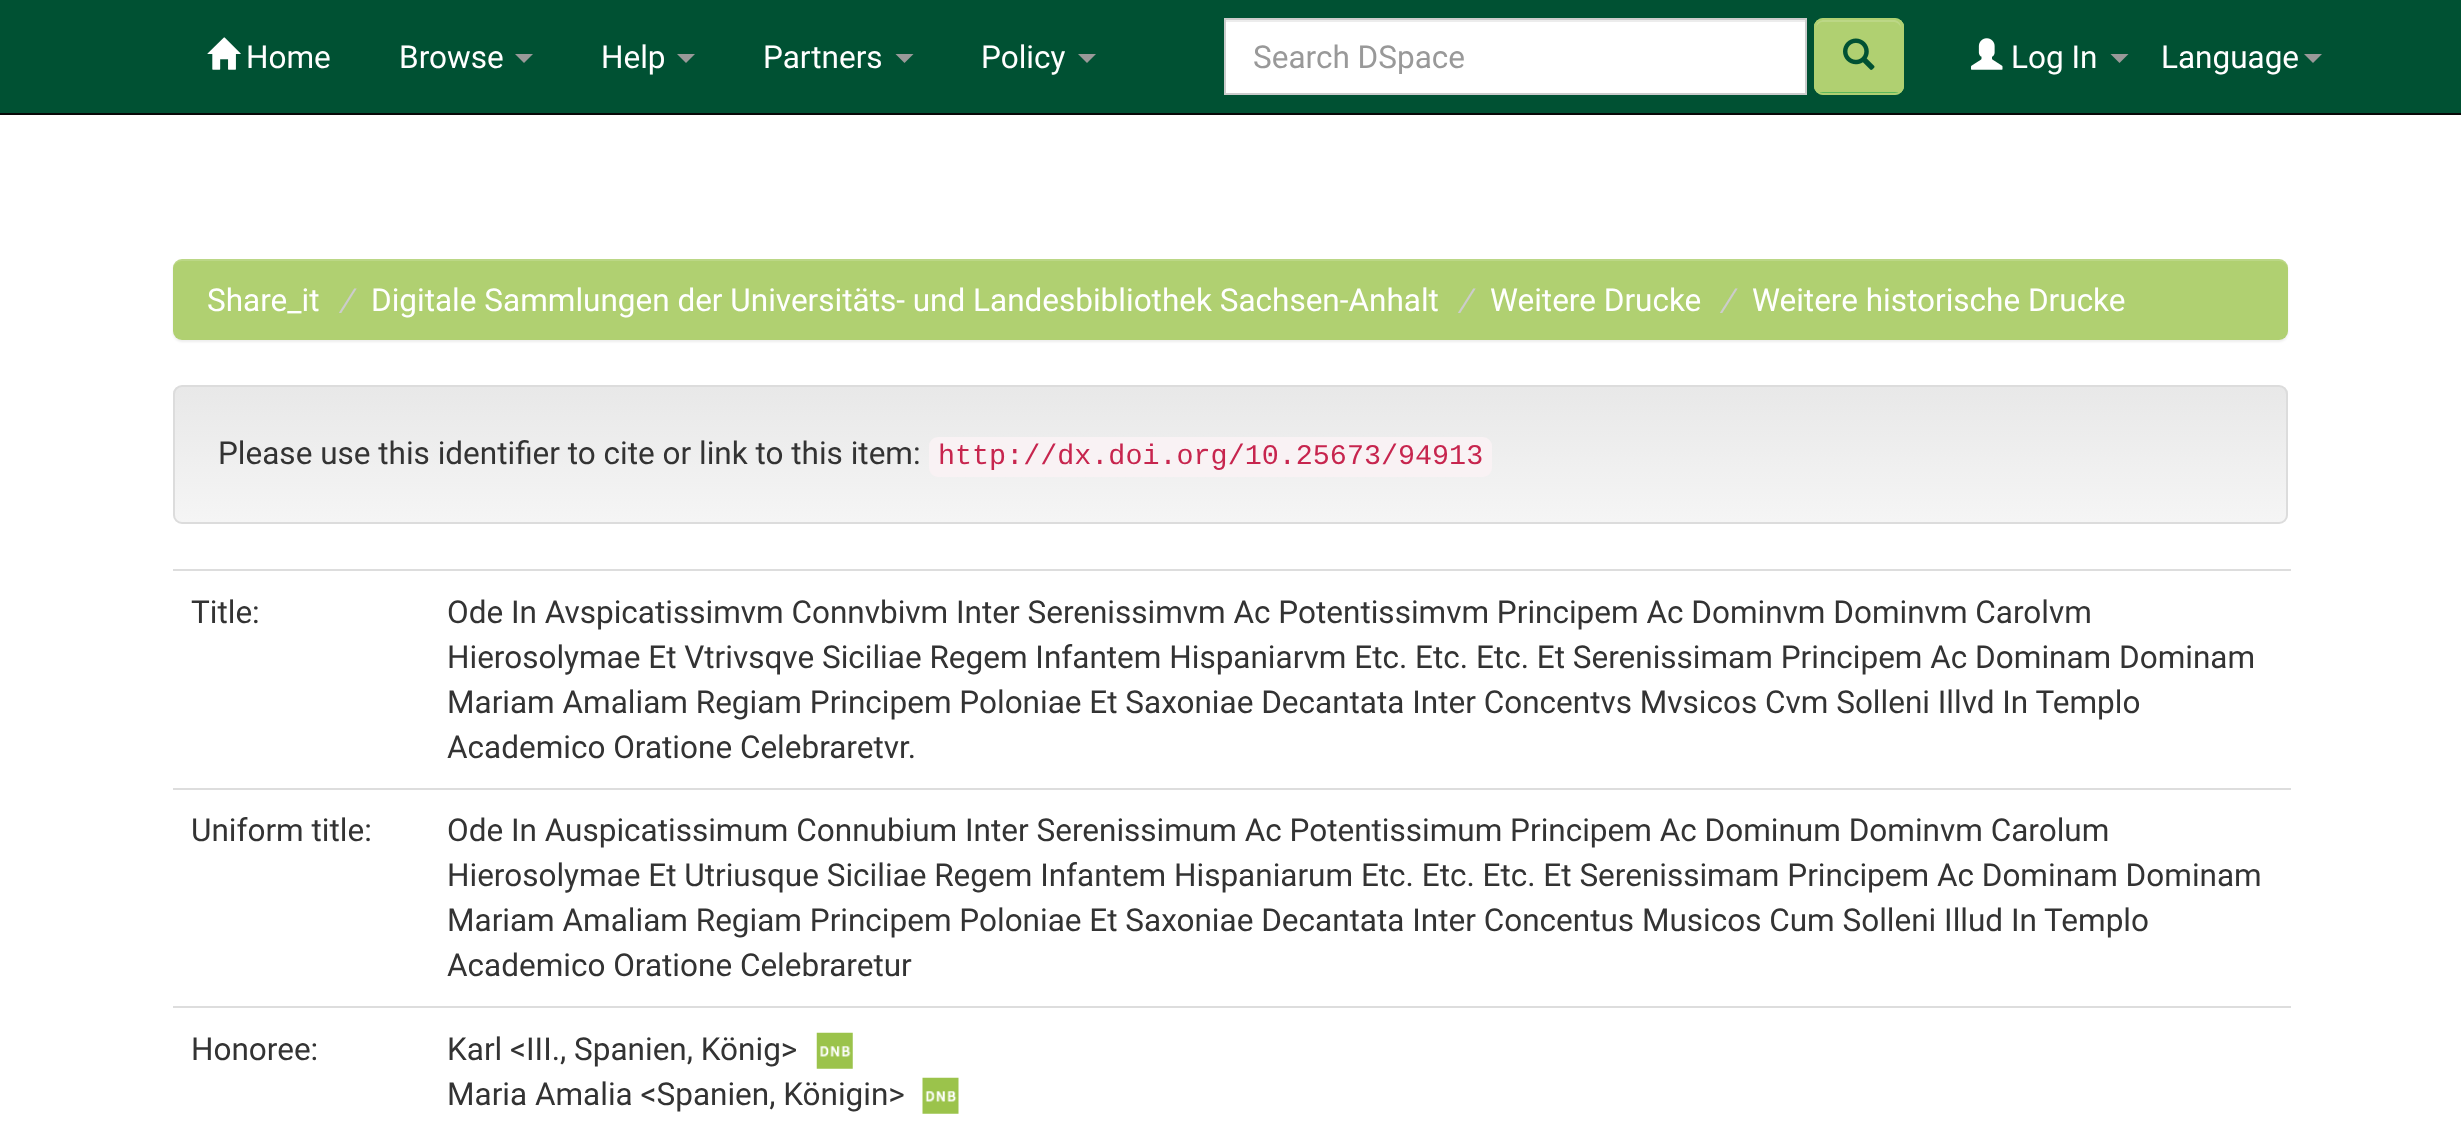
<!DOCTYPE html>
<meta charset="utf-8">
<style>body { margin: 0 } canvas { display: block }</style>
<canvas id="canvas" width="2461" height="1122"></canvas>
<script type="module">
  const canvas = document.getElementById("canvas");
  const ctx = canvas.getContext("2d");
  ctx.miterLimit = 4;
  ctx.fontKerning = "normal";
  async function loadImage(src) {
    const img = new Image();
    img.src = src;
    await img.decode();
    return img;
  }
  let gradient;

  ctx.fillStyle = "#ffffff";
  ctx.fillRect(0, 0, 2461, 1122);
  ctx.fillStyle = "#005133";
  ctx.fillRect(0, 0, 2461, 113);
  ctx.fillStyle = "#080808";
  ctx.fillRect(0, 113, 2461, 2);
  ctx.drawImage(await loadImage("img1.png"), 207, 37, 34, 33);
  ctx.font = "31.5px Roboto";
  ctx.fillStyle = "#ffffff";
  ctx.fillText("Home", 246, 68);
  ctx.fillText("Browse", 399, 68);
  ctx.fillStyle = "#999999";
  ctx.beginPath();
  ctx.moveTo(515, 54);
  ctx.lineTo(533, 54);
  ctx.lineTo(524, 63);
  ctx.closePath();
  ctx.fill();
  ctx.fillStyle = "#ffffff";
  ctx.fillText("Help", 601, 68);
  ctx.fillStyle = "#999999";
  ctx.beginPath();
  ctx.moveTo(677, 54);
  ctx.lineTo(695, 54);
  ctx.lineTo(686, 63);
  ctx.closePath();
  ctx.fill();
  ctx.fillStyle = "#ffffff";
  ctx.fillText("Partners", 763, 68);
  ctx.fillStyle = "#999999";
  ctx.beginPath();
  ctx.moveTo(895.5, 54);
  ctx.lineTo(913.5, 54);
  ctx.lineTo(904.5, 63);
  ctx.closePath();
  ctx.fill();
  ctx.fillStyle = "#ffffff";
  ctx.fillText("Policy", 981, 68);
  ctx.fillStyle = "#999999";
  ctx.beginPath();
  ctx.moveTo(1078, 54);
  ctx.lineTo(1096, 54);
  ctx.lineTo(1087, 63);
  ctx.closePath();
  ctx.fill();
  ctx.fillStyle = "#ffffff";
  ctx.fillRect(1226, 22, 579, 71);
  ctx.fillStyle = "#ececec";
  ctx.fillRect(1226, 20, 579, 2);
  ctx.strokeStyle = "#cccccc";
  ctx.lineWidth = 2;
  ctx.strokeRect(1225, 19, 581, 75);
  ctx.save();
  ctx.beginPath();
  ctx.rect(1253, 38, 525, 36);
  ctx.clip();
  ctx.fillStyle = "#999999";
  ctx.fillText("Search DSpace", 1253, 68);
  ctx.restore();
  ctx.fillStyle = "#5cb85c";
  ctx.beginPath();
  ctx.roundRect(1814, 18, 90, 77, 9);
  ctx.fill();
  ctx.save();
  ctx.beginPath();
  ctx.roundRect(1814, 18, 90, 77, 9);
  ctx.clip();
  ctx.fillStyle = "#b0d071";
  ctx.fillRect(1814, 20, 90, 72);
  ctx.restore();
  ctx.fillStyle = "#bcd786";
  ctx.beginPath();
  ctx.moveTo(1822, 22);
  ctx.lineTo(1894, 22);
  ctx.bezierCurveTo(1898, 22, 1901, 26, 1901, 29);
  ctx.bezierCurveTo(1901, 17, 1891, 20, 1882, 20);
  ctx.lineTo(1835, 20);
  ctx.bezierCurveTo(1826, 20, 1816, 17, 1816, 29);
  ctx.bezierCurveTo(1816, 26, 1819, 22, 1822, 22);
  ctx.closePath();
  ctx.fill();
  ctx.beginPath();
  ctx.roundRect(1815, 19, 88, 75, 8);
  ctx.strokeStyle = "#b0d071";
  ctx.stroke();
  ctx.drawImage(await loadImage("img2.png"), 1843, 38, 32, 32);
  ctx.drawImage(await loadImage("img3.png"), 1971, 38, 32, 32);
  ctx.fillStyle = "#ffffff";
  ctx.fillText("Log In", 2011, 68);
  ctx.fillStyle = "#999999";
  ctx.beginPath();
  ctx.moveTo(2110.5, 54);
  ctx.lineTo(2128.5, 54);
  ctx.lineTo(2119.5, 63);
  ctx.closePath();
  ctx.fill();
  ctx.fillStyle = "#ffffff";
  ctx.fillText("Language", 2161, 68);
  ctx.fillStyle = "#999999";
  ctx.beginPath();
  ctx.moveTo(2304, 54);
  ctx.lineTo(2322, 54);
  ctx.lineTo(2313, 63);
  ctx.closePath();
  ctx.fill();
  ctx.fillStyle = "rgba(0, 0, 0, 0.07)";
  ctx.filter = "blur(1px)";
  ctx.beginPath();
  ctx.roundRect(173, 261, 2115, 81, 9);
  ctx.fill();
  ctx.filter = "none";
  ctx.fillStyle = "#b0d071";
  ctx.beginPath();
  ctx.roundRect(173, 259, 2115, 81, 9);
  ctx.fill();
  ctx.fillStyle = "rgba(255, 255, 255, 0.15)";
  ctx.beginPath();
  ctx.moveTo(182, 261);
  ctx.lineTo(2279, 261);
  ctx.bezierCurveTo(2284, 261, 2288, 265, 2288, 270);
  ctx.bezierCurveTo(2288, 264, 2285, 259, 2279, 259);
  ctx.lineTo(182, 259);
  ctx.bezierCurveTo(176, 259, 173, 264, 173, 270);
  ctx.bezierCurveTo(173, 265, 177, 261, 182, 261);
  ctx.closePath();
  ctx.fill();
  ctx.fillStyle = "#ffffff";
  ctx.fillText("Share_it", 207, 311);
  ctx.font = "italic 31.5px Roboto";
  ctx.fillStyle = "#cccccc";
  ctx.fillText("/", 339, 311);
  ctx.font = "31.5px Roboto";
  ctx.fillStyle = "#ffffff";
  ctx.fillText("Digitale Sammlungen der Universitäts- und Landesbibliothek Sachsen-Anhalt", 371, 311);
  ctx.font = "italic 31.5px Roboto";
  ctx.fillStyle = "#cccccc";
  ctx.fillText("/", 1458, 311);
  ctx.font = "31.5px Roboto";
  ctx.fillStyle = "#ffffff";
  ctx.fillText("Weitere Drucke", 1490, 311);
  ctx.font = "italic 31.5px Roboto";
  ctx.fillStyle = "#cccccc";
  ctx.fillText("/", 1720, 311);
  ctx.font = "31.5px Roboto";
  ctx.fillStyle = "#ffffff";
  ctx.fillText("Weitere historische Drucke", 1752, 311);
  ctx.save();
  ctx.beginPath();
  ctx.roundRect(173, 385, 2115, 139, 9);
  ctx.clip();
  gradient = ctx.createLinearGradient(1231, 387, 1231, 522);
  gradient.addColorStop(0, "#e8e8e8");
  gradient.addColorStop(1, "#f5f5f5");
  ctx.fillStyle = gradient;
  ctx.fillRect(173, 387, 2115, 135);
  ctx.restore();
  ctx.beginPath();
  ctx.roundRect(174, 386, 2113, 137, 8);
  ctx.strokeStyle = "#dcdcdc";
  ctx.stroke();
  ctx.fillStyle = "#333333";
  ctx.fillText("Please use this identifier to cite or link to this item:", 218, 464);
  ctx.fillStyle = "#f9f2f4";
  ctx.beginPath();
  ctx.roundRect(929, 437, 563, 40, 9);
  ctx.fill();
  ctx.font = "28.4px Liberation Mono";
  ctx.fillStyle = "#c7254e";
  ctx.fillText("http://dx.doi.org/10.25673/94913", 938, 464);
  ctx.font = "31.5px Roboto";
  ctx.fillStyle = "#333333";
  ctx.fillText("Title:", 191, 623);
  ctx.fillStyle = "#dddddd";
  ctx.fillRect(173, 569, 2118, 2);
  ctx.fillStyle = "#333333";
  ctx.fillText("Ode In Avspicatissimvm Connvbivm Inter Serenissimvm Ac Potentissimvm Principem Ac Dominvm Dominvm Carolvm", 447, 623);
  ctx.fillText("Hierosolymae Et Vtrivsqve Siciliae Regem Infantem Hispaniarvm Etc. Etc. Etc. Et Serenissimam Principem Ac Dominam Dominam", 447, 668);
  ctx.fillText("Mariam Amaliam Regiam Principem Poloniae Et Saxoniae Decantata Inter Concentvs Mvsicos Cvm Solleni Illvd In Templo", 447, 713);
  ctx.fillText("Academico Oratione Celebraretvr.", 447, 758);
  ctx.fillText("Uniform title:", 191, 841);
  ctx.fillStyle = "#dddddd";
  ctx.fillRect(173, 788, 2118, 2);
  ctx.fillStyle = "#333333";
  ctx.fillText("Ode In Auspicatissimum Connubium Inter Serenissimum Ac Potentissimum Principem Ac Dominum Dominvm Carolum", 447, 841);
  ctx.fillText("Hierosolymae Et Utriusque Siciliae Regem Infantem Hispaniarum Etc. Etc. Etc. Et Serenissimam Principem Ac Dominam Dominam", 447, 886);
  ctx.fillText("Mariam Amaliam Regiam Principem Poloniae Et Saxoniae Decantata Inter Concentus Musicos Cum Solleni Illud In Templo", 447, 931);
  ctx.fillText("Academico Oratione Celebraretur", 447, 976);
  ctx.fillText("Honoree:", 191, 1060);
  ctx.fillStyle = "#dddddd";
  ctx.fillRect(173, 1006, 2118, 2);
  ctx.fillStyle = "#333333";
  ctx.fillText("Karl <III., Spanien, König>", 447, 1060);
  ctx.drawImage(await loadImage("img4.png"), 816, 1032, 37, 37);
  ctx.fillText("Maria Amalia <Spanien, Königin>", 447, 1105);
  ctx.drawImage(await loadImage("img5.png"), 922, 1077, 37, 37);
</script>
